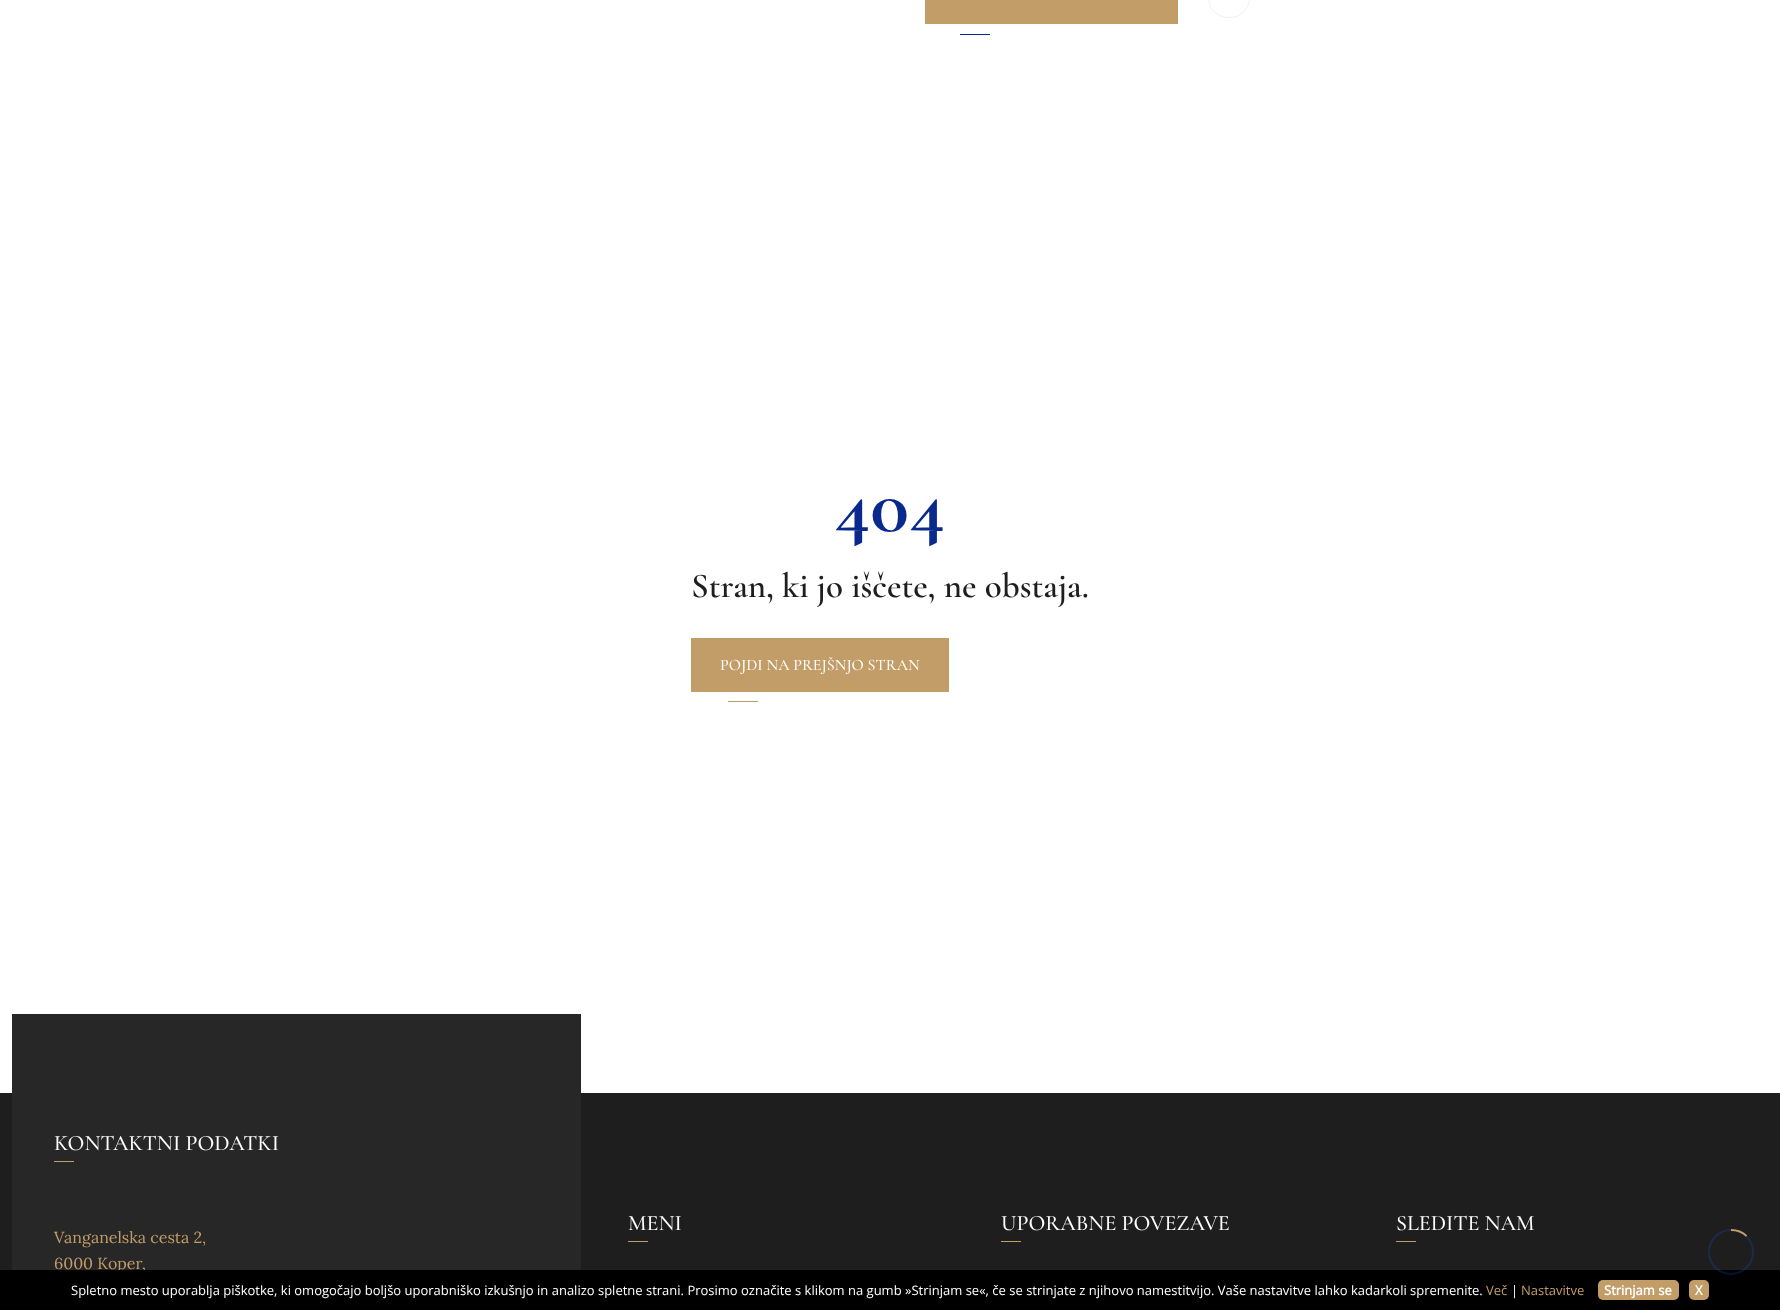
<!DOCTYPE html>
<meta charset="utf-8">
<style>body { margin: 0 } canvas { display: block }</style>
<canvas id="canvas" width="1780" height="1310"></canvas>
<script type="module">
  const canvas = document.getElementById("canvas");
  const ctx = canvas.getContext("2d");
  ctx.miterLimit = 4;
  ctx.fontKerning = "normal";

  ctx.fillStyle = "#ffffff";
  ctx.fillRect(0, 0, 1780, 1310);
  ctx.fillStyle = "#c29d68";
  ctx.fillRect(925, 0, 253, 24);
  ctx.fillStyle = "#092a8c";
  ctx.fillRect(960, 34, 30, 1);
  ctx.beginPath();
  ctx.roundRect(1208.5, -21.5, 41, 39, 20.5);
  ctx.strokeStyle = "#f1f1f1";
  ctx.stroke();
  ctx.font = "bold 80px Cormorant Garamond";
  ctx.fillText("404", 834, 531);
  ctx.font = "600 35px Cormorant Garamond";
  ctx.fillStyle = "#1e1e1e";
  ctx.fillText("Stran, ki jo iščete, ne obstaja.", 691, 597);
  ctx.fillStyle = "#c29d68";
  ctx.fillRect(691, 638, 258, 54);
  ctx.font = "500 16px Cormorant Garamond";
  ctx.fillStyle = "#ffffff";
  ctx.fillText("POJDI NA PREJŠNJO STRAN", 720, 670);
  ctx.fillStyle = "#c29d68";
  ctx.fillRect(728, 701, 30, 1);
  ctx.fillStyle = "#1e1e1e";
  ctx.fillRect(0, 1093, 1780, 177);
  ctx.fillStyle = "#272727";
  ctx.fillRect(12, 1014, 569, 256);
  ctx.font = "500 22px Cormorant Garamond";
  ctx.fillStyle = "#ffffff";
  ctx.fillText("KONTAKTNI PODATKI", 54, 1150);
  ctx.fillStyle = "#c29d68";
  ctx.fillRect(54, 1161, 20, 1);
  ctx.font = "16px Lora";
  ctx.fillText("Vanganelska cesta 2,", 54, 1243);
  ctx.fillText("6000 Koper,", 54, 1269);
  ctx.font = "500 22px Cormorant Garamond";
  ctx.fillStyle = "#ffffff";
  ctx.fillText("MENI", 628, 1230);
  ctx.fillStyle = "#c29d68";
  ctx.fillRect(628, 1241, 20, 1);
  ctx.fillStyle = "#ffffff";
  ctx.fillText("UPORABNE POVEZAVE", 1001, 1230);
  ctx.fillStyle = "#c29d68";
  ctx.fillRect(1001, 1241, 20, 1);
  ctx.fillStyle = "#ffffff";
  ctx.fillText("SLEDITE NAM", 1396, 1230);
  ctx.fillStyle = "#c29d68";
  ctx.fillRect(1396, 1241, 20, 1);
  ctx.fillStyle = "#000000";
  ctx.fillRect(0, 1270, 1780, 40);
  ctx.beginPath();
  ctx.arc(1731, 1252, 22, 0, Math.PI * 2);
  ctx.strokeStyle = "rgba(22, 93, 245, 0.2)";
  ctx.lineWidth = 2;
  ctx.stroke();
  ctx.beginPath();
  ctx.moveTo(1731, 1230);
  ctx.bezierCurveTo(1737, 1230, 1742.5, 1232, 1746.5, 1236);
  ctx.strokeStyle = "#c29d68";
  ctx.lineWidth = 1.8;
  ctx.stroke();
  ctx.font = "13px Open Sans";
  ctx.fillStyle = "#ffffff";
  ctx.fillText("Spletno mesto uporablja piškotke, ki omogočajo boljšo uporabniško izkušnjo in analizo spletne strani. Prosimo označite s klikom na gumb »Strinjam se«, če se strinjate z njihovo namestitvijo. Vaše nastavitve lahko kadarkoli spremenite.", 71, 1295);
  ctx.fillStyle = "#c29d68";
  ctx.fillText("Več", 1486, 1295);
  ctx.fillStyle = "#ffffff";
  ctx.fillText("|", 1511, 1295);
  ctx.fillStyle = "#c29d68";
  ctx.fillText("Nastavitve", 1521, 1295);
  ctx.beginPath();
  ctx.roundRect(1598, 1280, 81, 20, 5);
  ctx.fill();
  ctx.font = "bold 13px Open Sans";
  ctx.fillStyle = "#ffffff";
  ctx.fillText("Strinjam se", 1604, 1295);
  ctx.fillStyle = "#c29d68";
  ctx.beginPath();
  ctx.roundRect(1689, 1280, 20, 20, 5);
  ctx.fill();
  ctx.fillStyle = "#ffffff";
  ctx.fillText("X", 1695, 1295);
</script>
